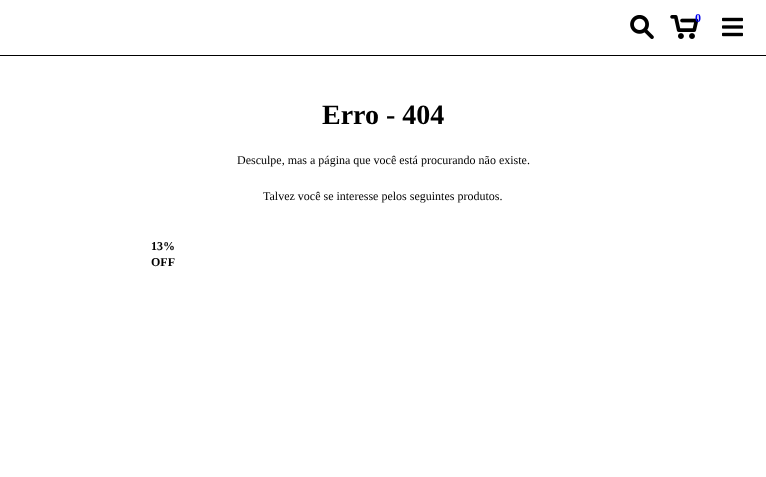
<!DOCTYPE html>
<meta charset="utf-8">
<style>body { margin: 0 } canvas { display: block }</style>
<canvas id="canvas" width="766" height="477"></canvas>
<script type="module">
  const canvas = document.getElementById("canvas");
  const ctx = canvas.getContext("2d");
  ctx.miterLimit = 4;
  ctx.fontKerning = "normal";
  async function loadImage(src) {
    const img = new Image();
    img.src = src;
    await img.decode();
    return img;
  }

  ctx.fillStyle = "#ffffff";
  ctx.fillRect(0, 0, 766, 477);
  ctx.drawImage(await loadImage("img1.png"), 630, 15, 24, 24);
  ctx.drawImage(await loadImage("img2.png"), 670, 15, 29, 24);
  ctx.font = "bold 12px Liberation Serif";
  ctx.fillStyle = "#0000ee";
  ctx.fillText("0", 695, 22);
  ctx.drawImage(await loadImage("img3.png"), 722, 17, 21, 20);
  ctx.fillStyle = "#000000";
  ctx.fillRect(0, 55, 766, 1);
  ctx.font = "bold 28px Liberation Serif";
  ctx.fillText("Erro - 404", 322, 124);
  ctx.font = "12px Liberation Serif";
  ctx.fillText("Desculpe, mas a página que você está procurando não existe.", 237, 164);
  ctx.fillText("Talvez você se interesse pelos seguintes produtos.", 263, 200);
  ctx.font = "bold 12px Liberation Serif";
  ctx.fillText("13%", 151, 250);
  ctx.fillText("OFF", 151, 266);
</script>
